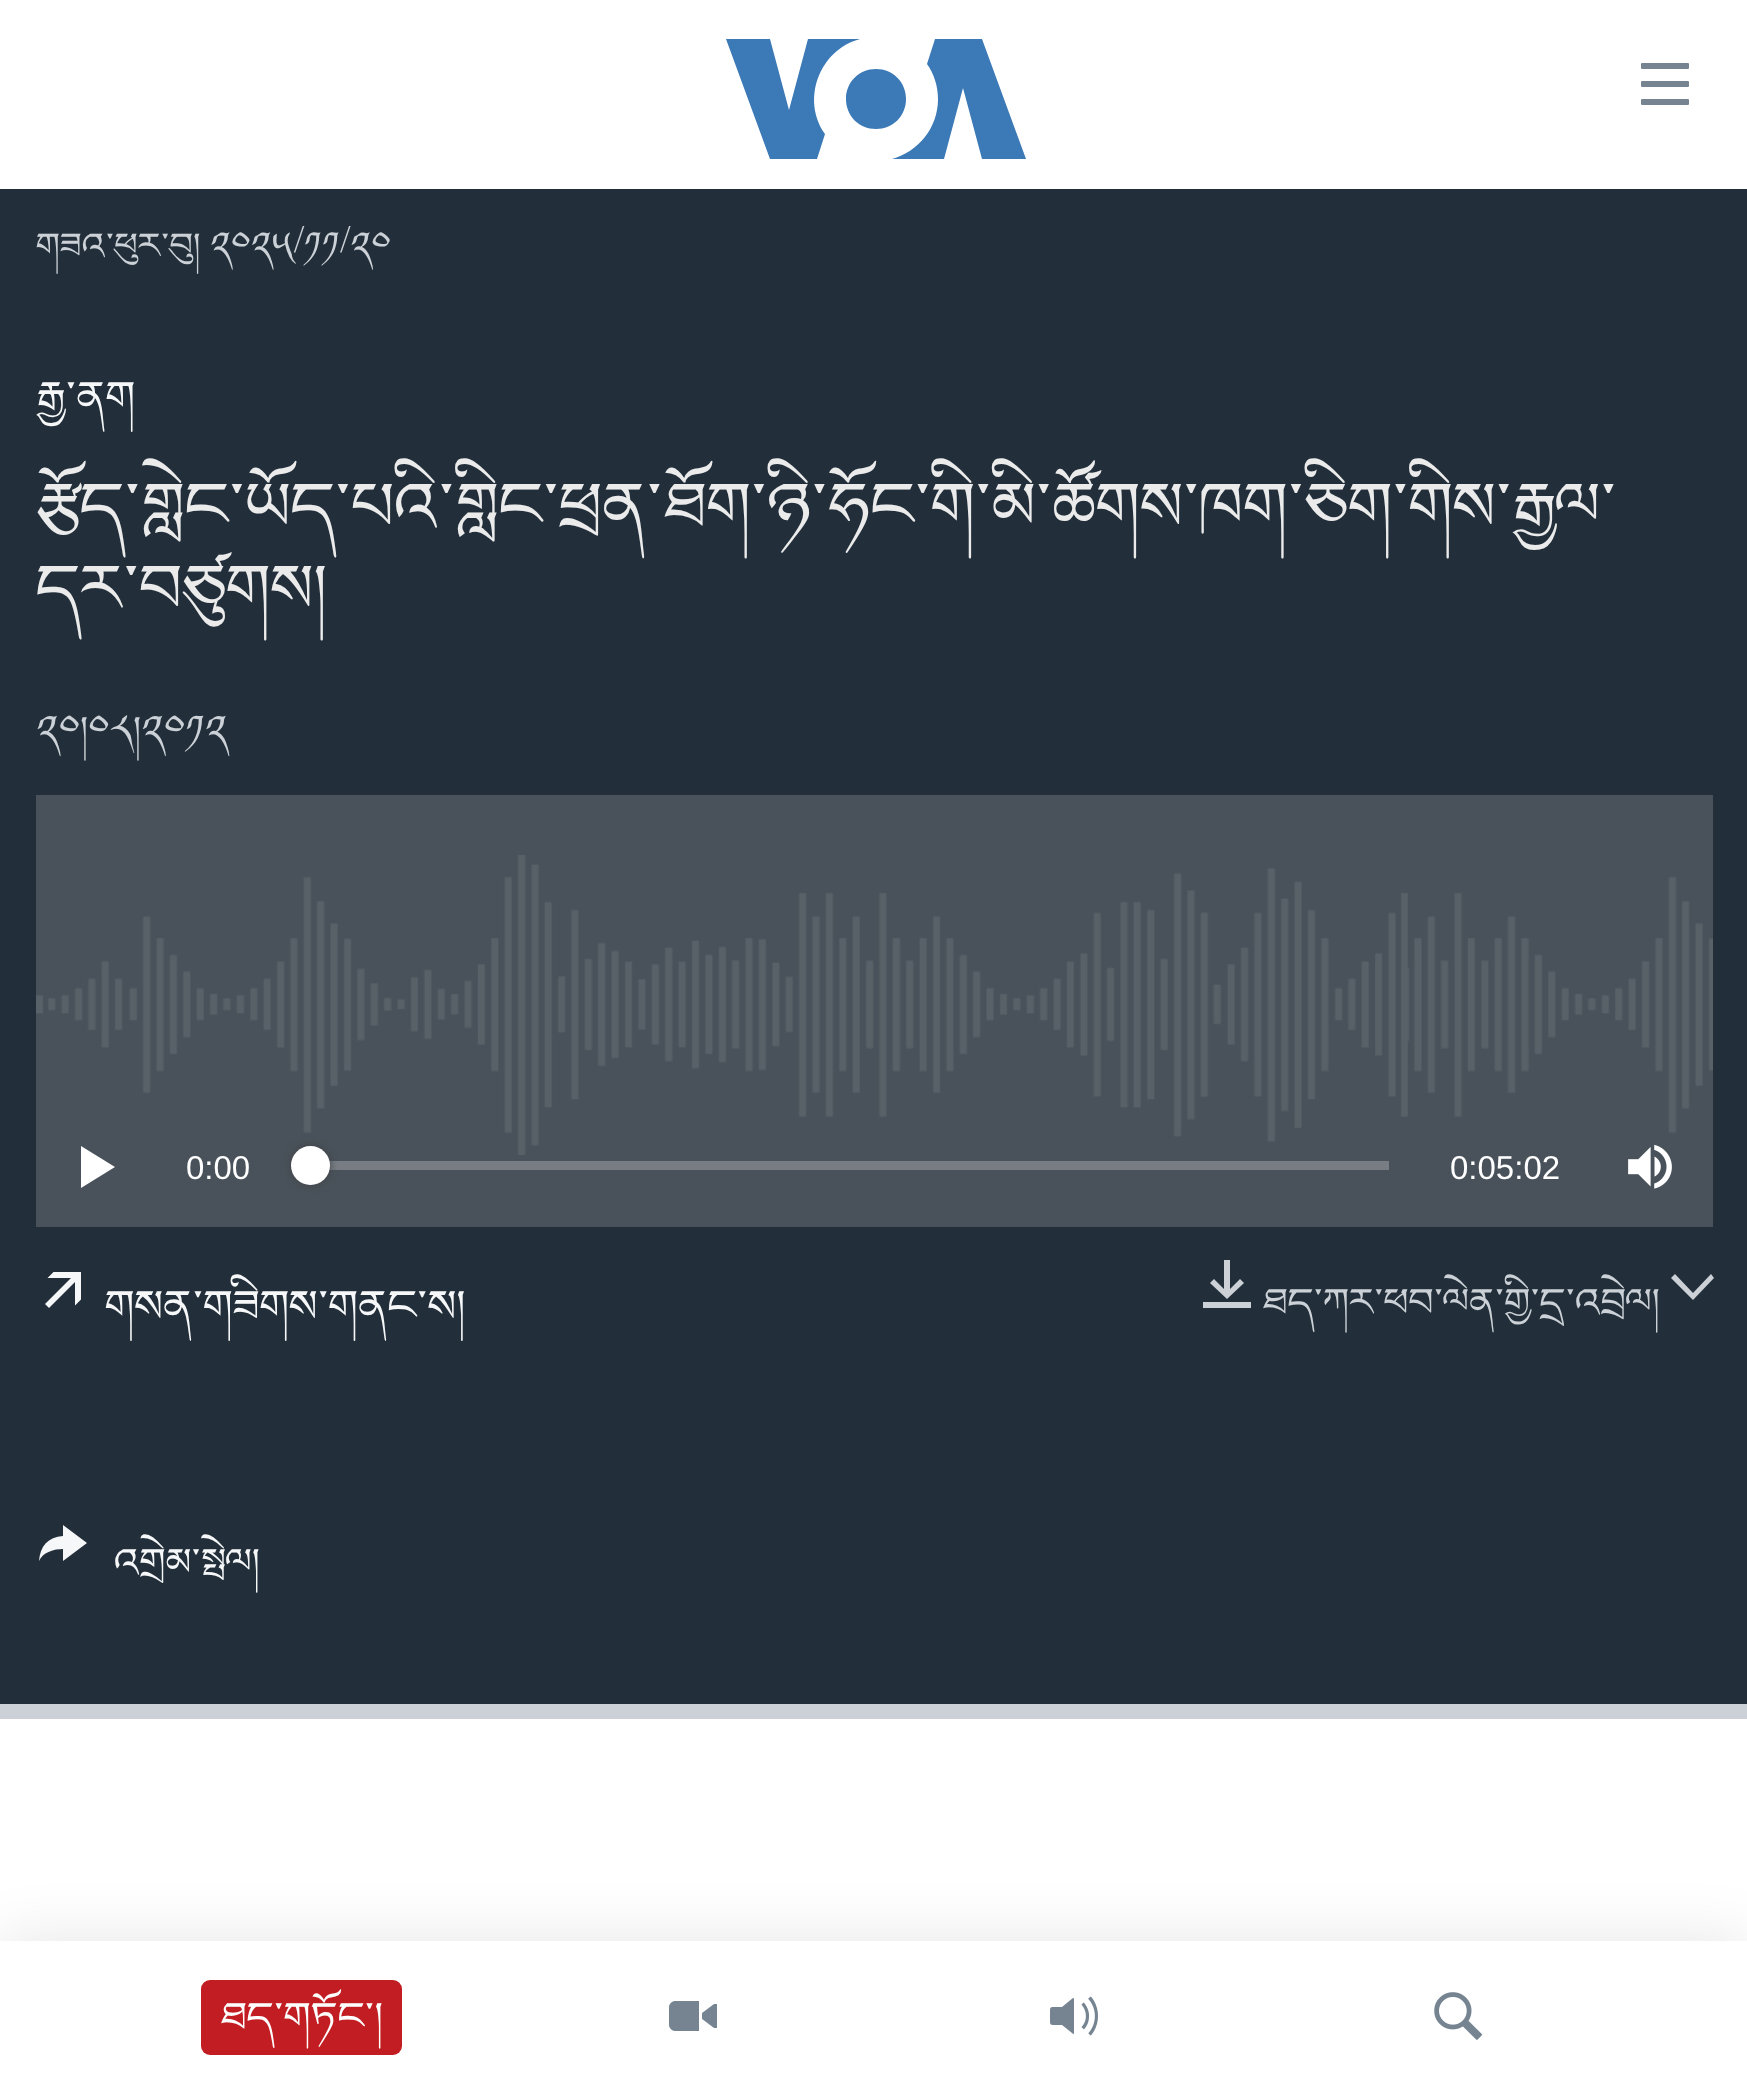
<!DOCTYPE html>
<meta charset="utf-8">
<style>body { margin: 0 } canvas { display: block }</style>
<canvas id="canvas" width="1747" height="2090"></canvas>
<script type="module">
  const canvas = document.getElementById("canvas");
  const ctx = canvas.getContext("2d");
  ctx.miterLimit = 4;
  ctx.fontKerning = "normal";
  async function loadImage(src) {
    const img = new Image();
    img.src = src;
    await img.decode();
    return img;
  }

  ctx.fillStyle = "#ffffff";
  ctx.fillRect(0, 0, 1747, 2090);
  ctx.fillStyle = "#222f3a";
  ctx.fillRect(0, 189, 1747, 1515);
  ctx.font = "56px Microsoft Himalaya";
  ctx.fillStyle = "#cbd1d6";
  ctx.fillText("གཟའ་ཕུར་བུ། ༢༠༢༥/༡༡/༢༠", 36, 252);
  ctx.fillRect(0, 1704, 1747, 15);
  ctx.font = "69px Microsoft Himalaya";
  ctx.fillStyle = "#f6f7f8";
  ctx.fillText("རྒྱ་ནག", 36, 405);
  ctx.font = "103.5px Microsoft Himalaya";
  ctx.fillStyle = "#ebebeb";
  ctx.fillText("རྩོད་གླེང་ཡོད་པའི་གླིང་ཕྲན་ཐོག་ཉི་ཧོང་གི་མི་ཚོགས་ཁག་ཅིག་གིས་རྒྱལ་", 36, 518);
  ctx.fillText("དར་བཙུགས།", 36, 600);
  ctx.font = "60.5px Microsoft Himalaya";
  ctx.fillStyle = "#cbd1d6";
  ctx.fillText("༢༠།༠༨།༢༠༡༢", 36, 737);
  ctx.fillStyle = "#49525a";
  ctx.fillRect(36, 795, 1677, 432);
  ctx.drawImage(await loadImage("img1.png"), 36, 855, 1677, 300);
  ctx.fillStyle = "#ffffff";
  ctx.beginPath();
  ctx.moveTo(81, 1188);
  ctx.lineTo(115, 1167);
  ctx.lineTo(81, 1146);
  ctx.closePath();
  ctx.fill();
  ctx.font = "33px Liberation Sans";
  ctx.fillText("0:00", 186, 1179);
  ctx.fillStyle = "#777d83";
  ctx.fillRect(329, 1161, 1060, 9);
  ctx.fillStyle = "#414144";
  ctx.filter = "blur(4.5px)";
  ctx.beginPath();
  ctx.roundRect(291, 1146, 39, 39, 19.5);
  ctx.fill();
  ctx.filter = "none";
  ctx.fillStyle = "#ffffff";
  ctx.beginPath();
  ctx.arc(310.5, 1165.5, 19.5, 0, Math.PI * 2);
  ctx.fill();
  ctx.fillText("0:05:02", 1450, 1179);
  ctx.drawImage(await loadImage("img2.png"), 1628, 1144, 44, 45);
  ctx.fillStyle = "#f6f7f8";
  ctx.beginPath();
  ctx.moveTo(81, 1272);
  ctx.lineTo(53.5, 1272);
  ctx.lineTo(47.5, 1278);
  ctx.lineTo(71, 1278);
  ctx.lineTo(45, 1304);
  ctx.lineTo(49, 1308);
  ctx.lineTo(75, 1282);
  ctx.lineTo(75, 1305.5);
  ctx.lineTo(81, 1299.5);
  ctx.closePath();
  ctx.fill();
  ctx.font = "69px Microsoft Himalaya";
  ctx.fillText("གསན་གཟིགས་གནང་ས།", 105, 1314);
  ctx.fillStyle = "#cbd1d6";
  ctx.beginPath();
  ctx.moveTo(1251, 1302);
  ctx.lineTo(1251, 1308);
  ctx.lineTo(1203, 1308);
  ctx.lineTo(1203, 1302);
  ctx.closePath();
  ctx.moveTo(1244, 1283);
  ctx.lineTo(1240, 1279);
  ctx.lineTo(1230, 1289);
  ctx.lineTo(1230, 1260);
  ctx.lineTo(1224, 1260);
  ctx.lineTo(1224, 1289);
  ctx.lineTo(1214, 1279);
  ctx.lineTo(1210, 1283);
  ctx.lineTo(1227, 1299);
  ctx.closePath();
  ctx.fill();
  ctx.font = "60.5px Microsoft Himalaya";
  ctx.fillText("ཐད་ཀར་ཕབ་ལེན་གྱི་དྲ་འབྲེལ།", 1262, 1309);
  ctx.beginPath();
  ctx.moveTo(1671, 1278);
  ctx.lineTo(1693, 1300);
  ctx.lineTo(1714, 1278);
  ctx.lineTo(1711, 1274);
  ctx.lineTo(1693, 1293);
  ctx.lineTo(1675, 1274);
  ctx.closePath();
  ctx.fill();
  ctx.fillStyle = "#f6f7f8";
  ctx.beginPath();
  ctx.moveTo(39, 1561);
  ctx.bezierCurveTo(40, 1546, 48, 1537, 63, 1536);
  ctx.lineTo(63, 1525);
  ctx.lineTo(87, 1543);
  ctx.lineTo(63, 1561);
  ctx.lineTo(63, 1549);
  ctx.bezierCurveTo(54, 1549, 43, 1552, 39, 1561);
  ctx.closePath();
  ctx.fill();
  ctx.fillText("འགྲེམ་སྤེལ།", 114, 1569);
  ctx.fillStyle = "#3b79b7";
  ctx.beginPath();
  ctx.moveTo(825, 134);
  ctx.lineTo(817, 159);
  ctx.lineTo(770, 159);
  ctx.lineTo(726, 39);
  ctx.lineTo(770, 39);
  ctx.lineTo(789, 110);
  ctx.lineTo(808, 39);
  ctx.lineTo(860, 39);
  ctx.bezierCurveTo(819, 50, 801, 100, 825, 134);
  ctx.closePath();
  ctx.moveTo(876, 69);
  ctx.bezierCurveTo(859, 69, 846, 82, 846, 99);
  ctx.bezierCurveTo(846, 116, 859, 129, 876, 129);
  ctx.bezierCurveTo(893, 129, 906, 116, 906, 99);
  ctx.bezierCurveTo(906, 82, 893, 69, 876, 69);
  ctx.closePath();
  ctx.moveTo(938, 99);
  ctx.bezierCurveTo(938, 128, 918, 152, 892, 159);
  ctx.lineTo(944, 159);
  ctx.lineTo(963, 88);
  ctx.lineTo(982, 159);
  ctx.lineTo(1026, 159);
  ctx.lineTo(982, 39);
  ctx.lineTo(935, 39);
  ctx.lineTo(927, 64);
  ctx.bezierCurveTo(934, 74, 938, 86, 938, 99);
  ctx.closePath();
  ctx.fill();
  ctx.drawImage(await loadImage("img3.png"), 1641, 63, 48, 42);
  ctx.fillStyle = "rgba(0, 0, 0, 0.1)";
  ctx.filter = "blur(30px)";
  ctx.beginPath();
  ctx.rect(0, 1941, 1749, 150);
  ctx.fill();
  ctx.filter = "none";
  ctx.fillStyle = "#ffffff";
  ctx.fillRect(0, 1941, 1747, 149);
  ctx.fillStyle = "#c11d22";
  ctx.beginPath();
  ctx.roundRect(201, 1980, 201, 75, 9);
  ctx.fill();
  ctx.font = "63px Microsoft Himalaya";
  ctx.fillStyle = "#ffffff";
  ctx.fillText("ཐད་གཏོང་།", 220, 2024);
  ctx.drawImage(await loadImage("img4.png"), 669, 2001, 48, 30);
  ctx.drawImage(await loadImage("img5.png"), 1050, 1996, 48, 40);
  ctx.drawImage(await loadImage("img6.png"), 1434, 1992, 48, 48);
</script>
